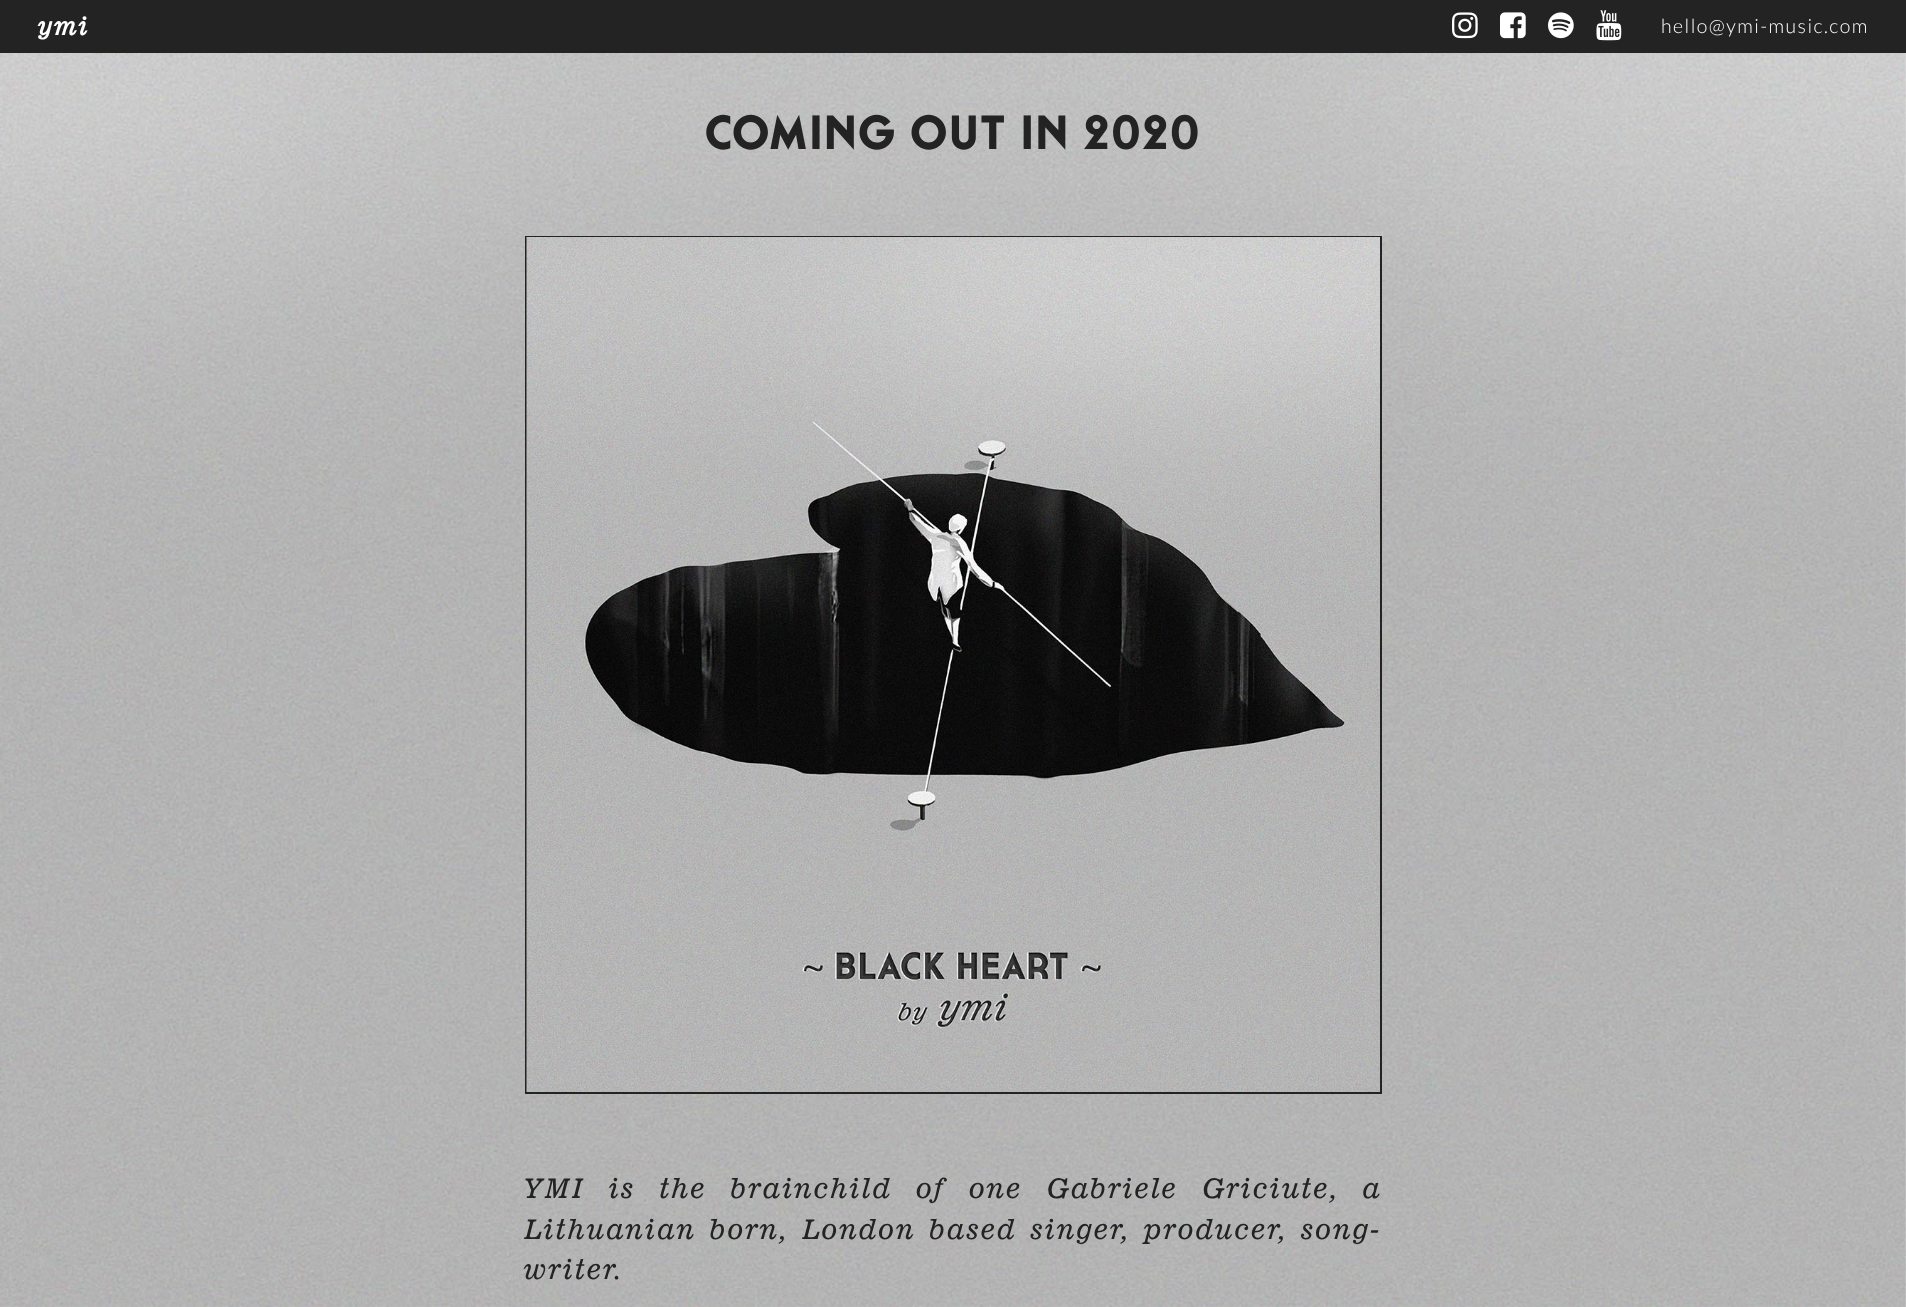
<!DOCTYPE html>
<meta charset="utf-8">
<style>body { margin: 0 } canvas { display: block }</style>
<canvas id="canvas" width="1906" height="1307"></canvas>
<script type="module">
  const canvas = document.getElementById("canvas");
  const ctx = canvas.getContext("2d");
  ctx.miterLimit = 4;
  ctx.fontKerning = "normal";
  async function loadImage(src) {
    const img = new Image();
    img.src = src;
    await img.decode();
    return img;
  }

  ctx.fillStyle = "#ffffff";
  ctx.fillRect(0, 0, 1906, 1307);
  ctx.drawImage(await loadImage("img1.png"), 0, 53, 1906, 1254);
  ctx.fillStyle = "#232323";
  ctx.fillRect(0, 0, 1906, 53);
  ctx.letterSpacing = "1.5px";
  ctx.font = "italic bold 24px 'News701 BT'";
  ctx.fillStyle = "#ffffff";
  ctx.fillText("ymi", 38, 35);
  ctx.drawImage(await loadImage("img2.png"), 1452, 12, 26, 27);
  ctx.drawImage(await loadImage("img3.png"), 1500, 12, 26, 27);
  ctx.drawImage(await loadImage("img4.png"), 1548, 12, 26, 27);
  ctx.drawImage(await loadImage("img5.png"), 1596, 10, 26, 31);
  ctx.font = "300 19.5px Lato";
  ctx.fillText("hello@ymi-music.com", 1661, 33);
  ctx.font = "bold 48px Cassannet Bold";
  ctx.fillStyle = "#232323";
  ctx.fillText("COMING OUT IN 2020", 705, 149);
  ctx.strokeStyle = "#232323";
  ctx.lineWidth = 2;
  ctx.strokeRect(526, 237, 855, 856);
  ctx.drawImage(await loadImage("img6.png"), 526, 237, 854, 855);
  ctx.wordSpacing = "15.25px";
  ctx.font = "italic 27px 'News701 BT'";
  ctx.fillText("YMI is the brainchild of one Gabriele Griciute, a", 524, 1198);
  ctx.wordSpacing = "5px";
  ctx.fillText("Lithuanian born, London based singer, producer, song-", 524, 1239);
  ctx.wordSpacing = "0px";
  ctx.fillText("writer.", 524, 1279);
</script>
